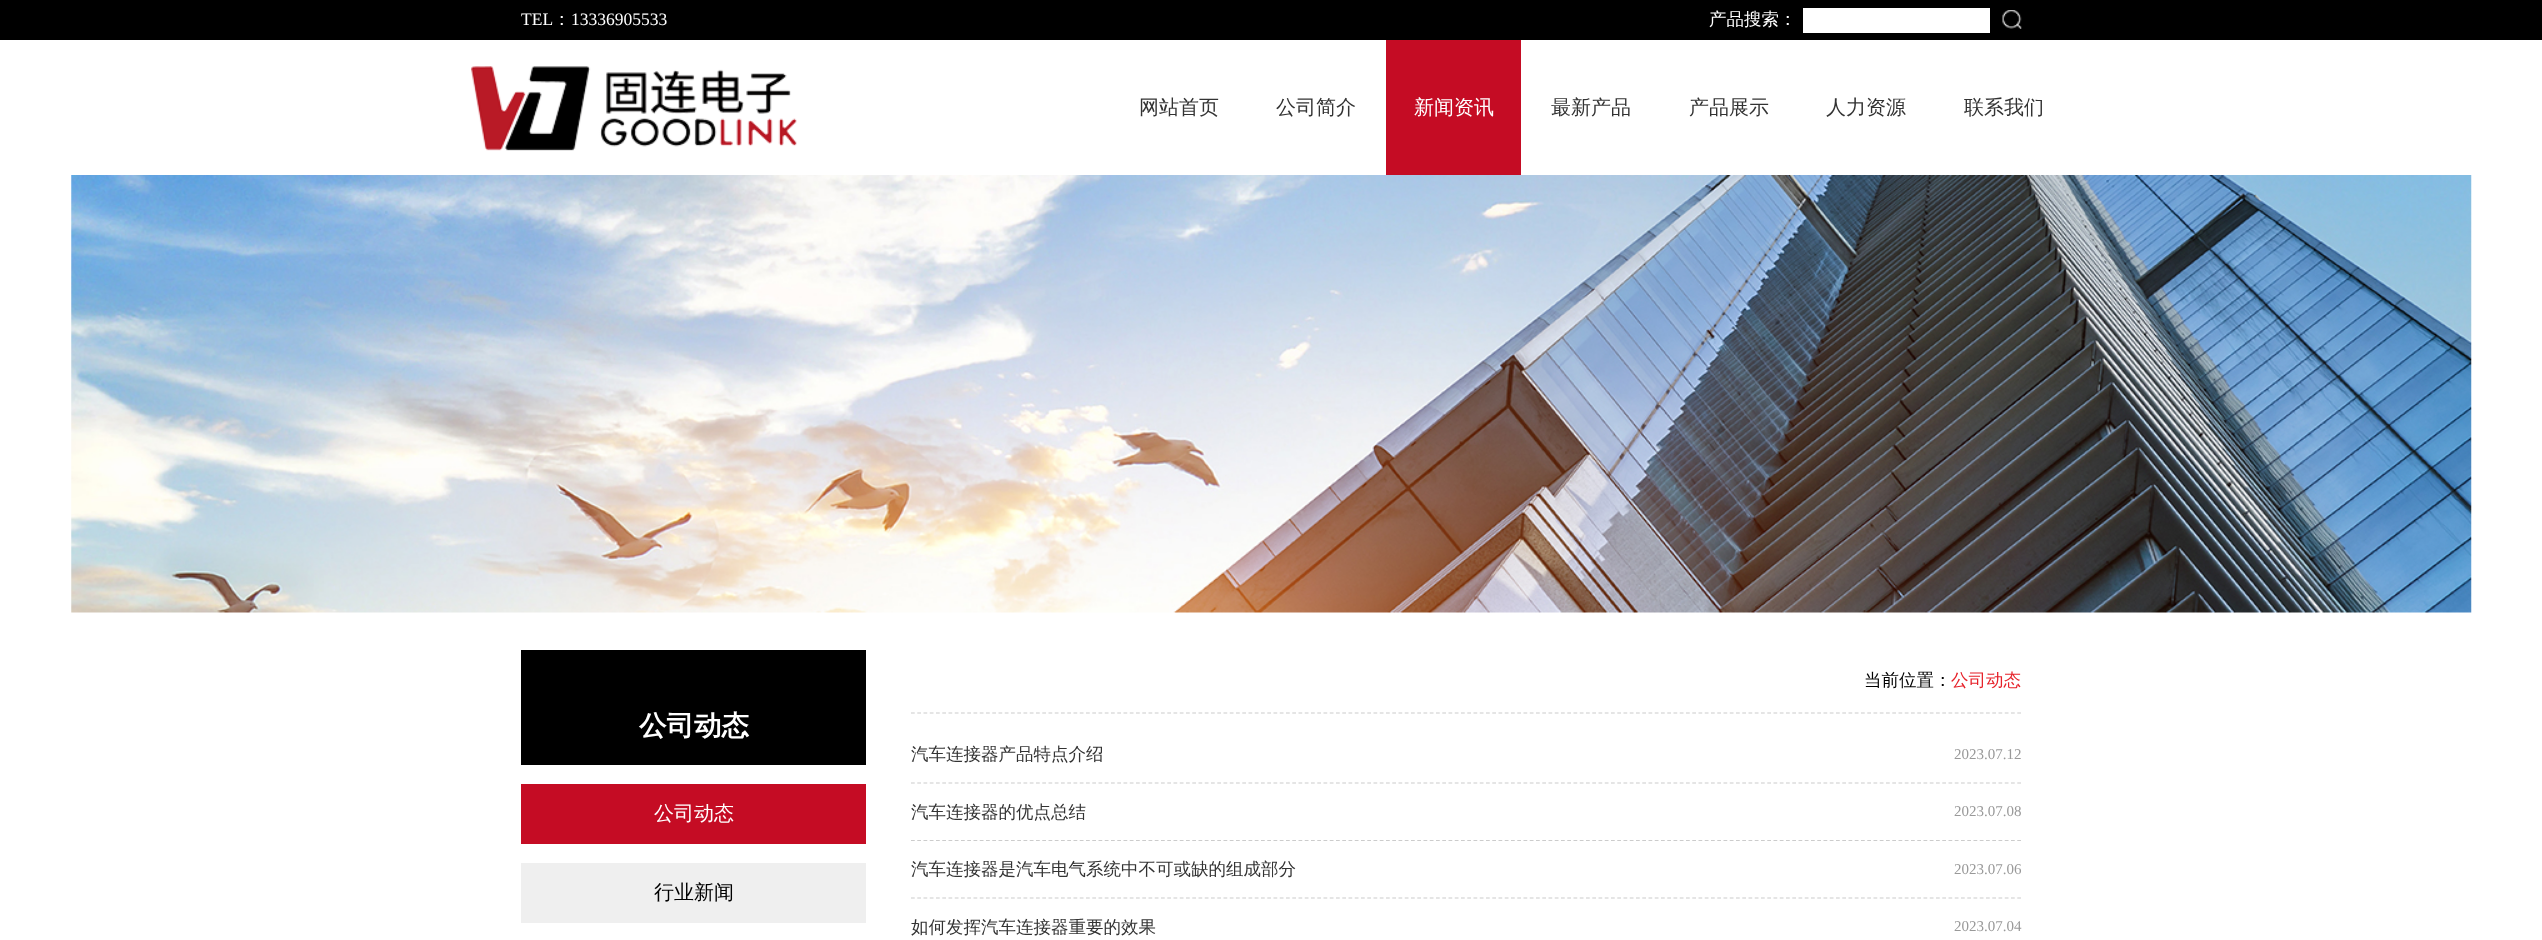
<!DOCTYPE html>
<meta charset="utf-8">
<style>body { margin: 0 } canvas { display: block }</style>
<canvas id="canvas" width="2542" height="940"></canvas>
<script type="module">
  const canvas = document.getElementById("canvas");
  const ctx = canvas.getContext("2d");
  ctx.miterLimit = 4;
  ctx.fontKerning = "normal";
  async function loadImage(src) {
    const img = new Image();
    img.src = src;
    await img.decode();
    return img;
  }

  ctx.fillStyle = "#ffffff";
  ctx.fillRect(0, 0, 2542, 940);
  ctx.fillStyle = "#000000";
  ctx.fillRect(0, 0, 2542, 40);
  ctx.font = "17.5px Liberation Serif";
  ctx.fillStyle = "#ffffff";
  ctx.fillText("TEL", 521, 25);
  ctx.font = "500 17.5px WenQuanYi Zen Hei";
  ctx.fillText("：", 553, 25);
  ctx.font = "17.5px Liberation Serif";
  ctx.fillText("13336905533", 571, 25);
  ctx.font = "500 17.5px WenQuanYi Zen Hei";
  ctx.fillText("产品搜索：", 1709, 25);
  ctx.fillRect(1803, 8, 187, 25);
  ctx.drawImage(await loadImage("img1.png"), 2002, 10, 20, 19);
  ctx.drawImage(await loadImage("img2.png"), 471, 66, 326, 85);
  ctx.font = "500 20px WenQuanYi Zen Hei";
  ctx.fillStyle = "#333333";
  ctx.fillText("网站首页", 1139, 114);
  ctx.fillText("公司简介", 1276, 114);
  ctx.fillStyle = "#c50c24";
  ctx.fillRect(1386, 40, 135, 135);
  ctx.fillStyle = "#ffffff";
  ctx.fillText("新闻资讯", 1414, 114);
  ctx.fillStyle = "#333333";
  ctx.fillText("最新产品", 1551, 114);
  ctx.fillText("产品展示", 1689, 114);
  ctx.fillText("人力资源", 1826, 114);
  ctx.fillText("联系我们", 1964, 114);
  ctx.drawImage(await loadImage("img3.png"), 71, 175, 2401, 438);
  ctx.fillStyle = "#000000";
  ctx.fillRect(521, 650, 345, 115);
  ctx.font = "bold 27.5px WenQuanYi Zen Hei";
  ctx.fillStyle = "#ffffff";
  ctx.fillText("公司动态", 639, 735);
  ctx.fillStyle = "#c50c24";
  ctx.fillRect(521, 784, 345, 60);
  ctx.font = "500 20px WenQuanYi Zen Hei";
  ctx.fillStyle = "#ffffff";
  ctx.fillText("公司动态", 654, 820);
  ctx.fillStyle = "#efefef";
  ctx.fillRect(521, 863, 345, 60);
  ctx.fillStyle = "#000000";
  ctx.fillText("行业新闻", 654, 899);
  ctx.beginPath();
  ctx.moveTo(911, 713);
  ctx.lineTo(2021, 713);
  ctx.strokeStyle = "#cccccc";
  ctx.lineWidth = 1.2;
  ctx.setLineDash([3.75, 2.5]);
  ctx.stroke();
  ctx.font = "500 17.5px WenQuanYi Zen Hei";
  ctx.fillText("当前位置：", 1864, 686);
  ctx.fillStyle = "#e62129";
  ctx.fillText("公司动态", 1951, 686);
  ctx.beginPath();
  ctx.moveTo(911, 783);
  ctx.lineTo(2021, 783);
  ctx.stroke();
  ctx.fillStyle = "#333333";
  ctx.fillText("汽车连接器产品特点介绍", 911, 760);
  ctx.font = "15px Liberation Serif";
  ctx.fillStyle = "#999999";
  ctx.fillText("2023.07.12", 1954, 759);
  ctx.beginPath();
  ctx.moveTo(911, 840.5);
  ctx.lineTo(2021, 840.5);
  ctx.stroke();
  ctx.font = "500 17.5px WenQuanYi Zen Hei";
  ctx.fillStyle = "#333333";
  ctx.fillText("汽车连接器的优点总结", 911, 818);
  ctx.font = "15px Liberation Serif";
  ctx.fillStyle = "#999999";
  ctx.fillText("2023.07.08", 1954, 816);
  ctx.beginPath();
  ctx.moveTo(911, 898);
  ctx.lineTo(2021, 898);
  ctx.stroke();
  ctx.font = "500 17.5px WenQuanYi Zen Hei";
  ctx.fillStyle = "#333333";
  ctx.fillText("汽车连接器是汽车电气系统中不可或缺的组成部分", 911, 875);
  ctx.font = "15px Liberation Serif";
  ctx.fillStyle = "#999999";
  ctx.fillText("2023.07.06", 1954, 874);
  ctx.font = "500 17.5px WenQuanYi Zen Hei";
  ctx.fillStyle = "#333333";
  ctx.fillText("如何发挥汽车连接器重要的效果", 911, 933);
  ctx.font = "15px Liberation Serif";
  ctx.fillStyle = "#999999";
  ctx.fillText("2023.07.04", 1954, 931);
</script>
